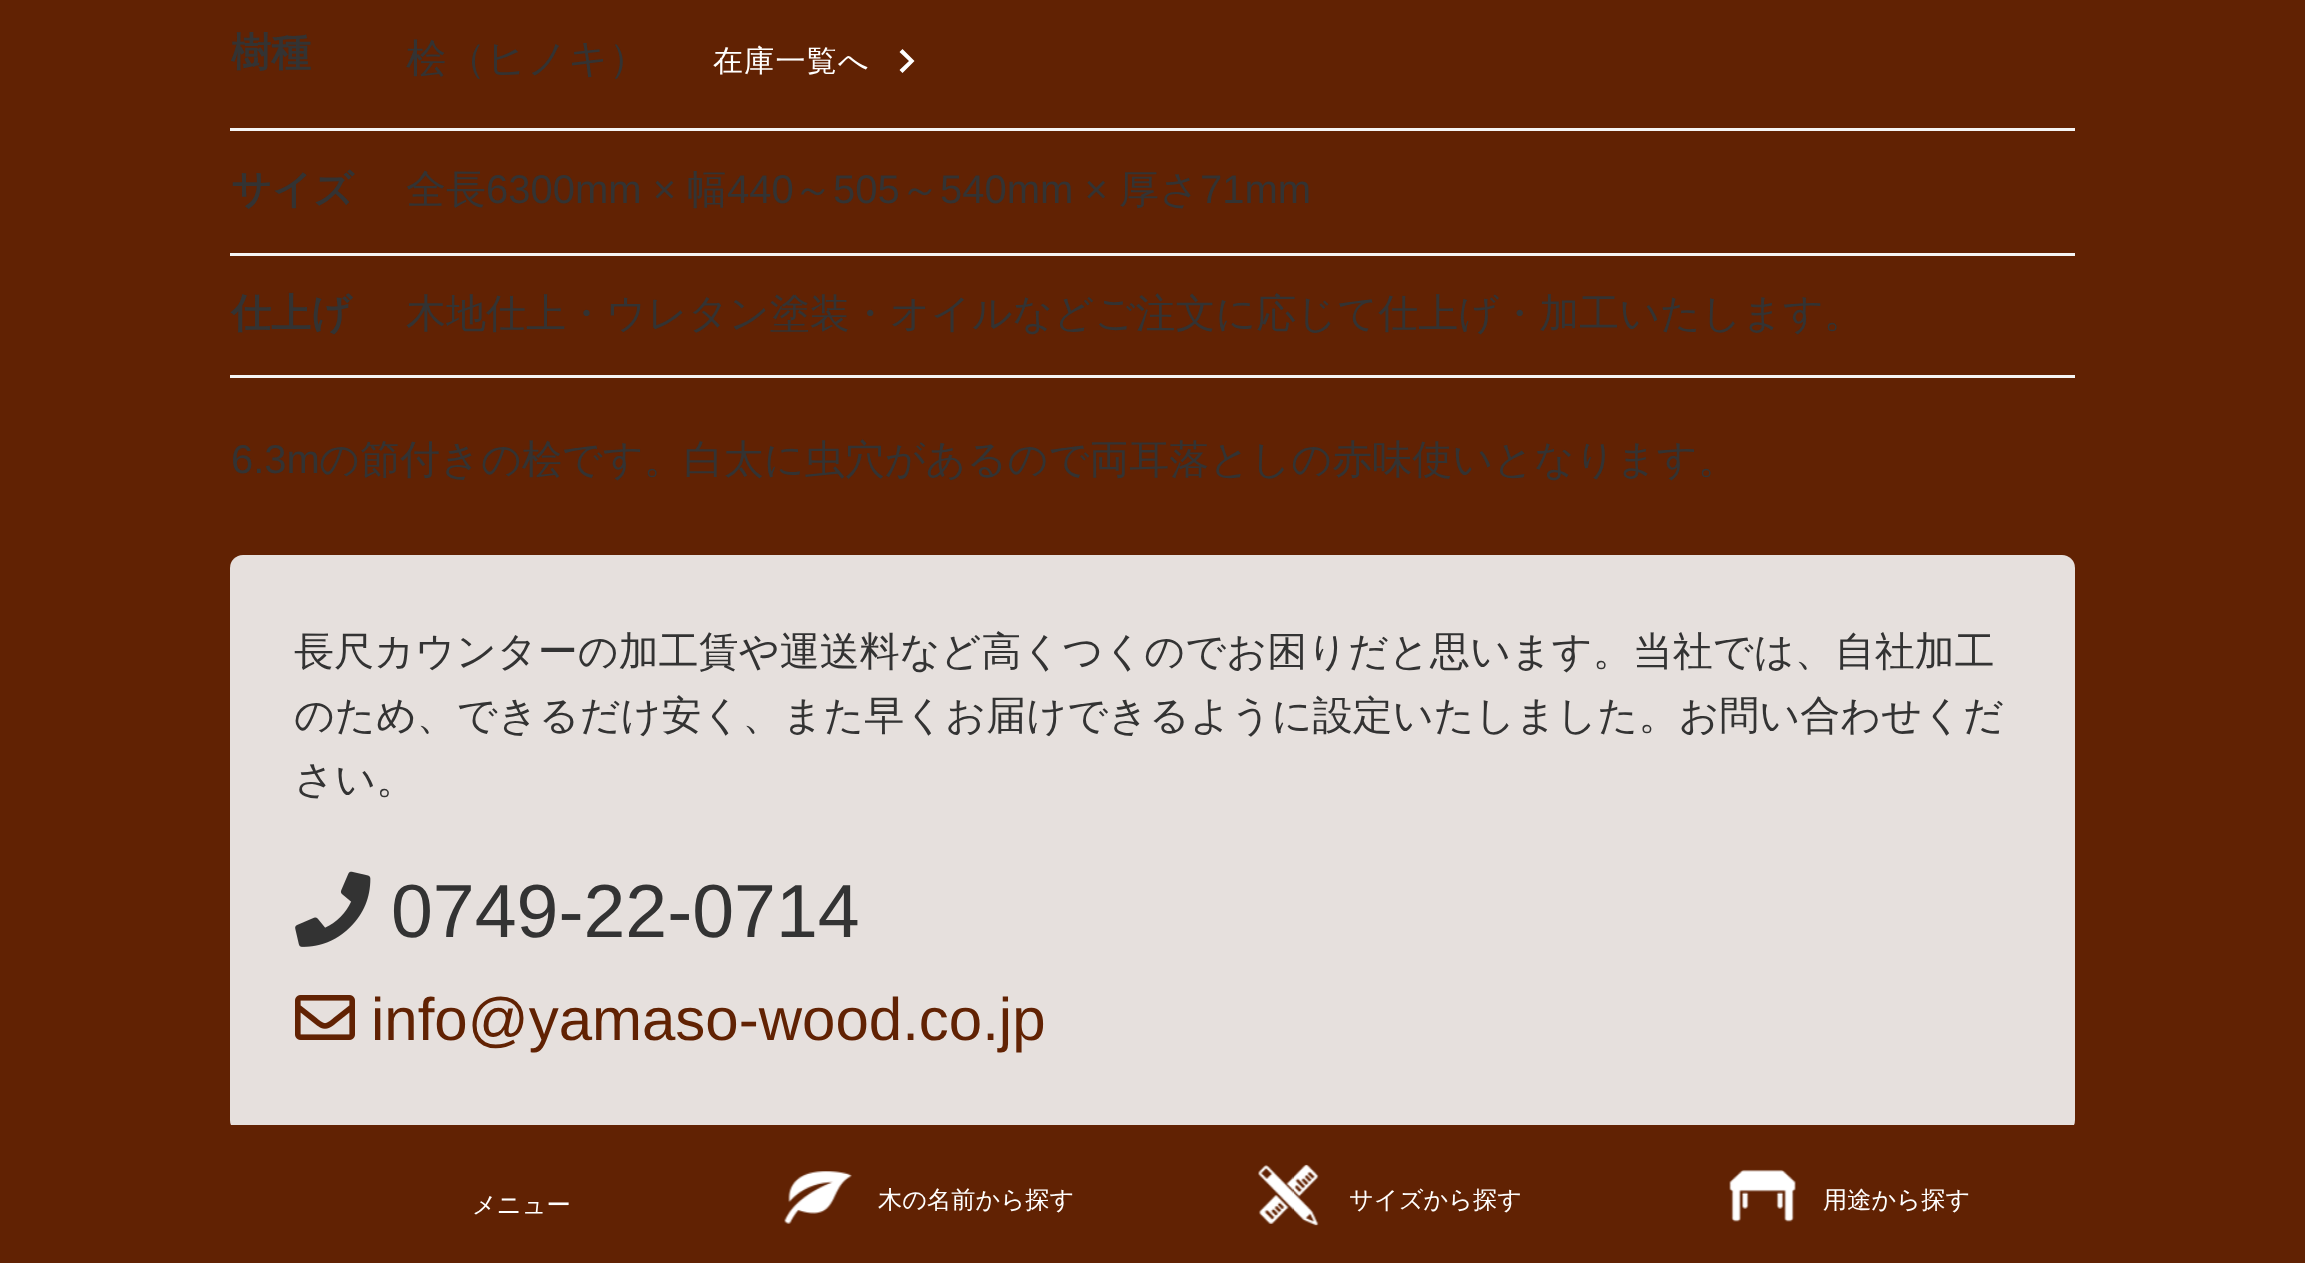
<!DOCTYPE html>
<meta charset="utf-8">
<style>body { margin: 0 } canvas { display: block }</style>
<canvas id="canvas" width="2305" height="1263"></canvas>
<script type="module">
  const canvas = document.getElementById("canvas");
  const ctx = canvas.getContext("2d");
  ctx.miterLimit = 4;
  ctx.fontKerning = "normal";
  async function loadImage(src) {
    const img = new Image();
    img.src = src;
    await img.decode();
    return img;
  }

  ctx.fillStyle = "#612203";
  ctx.fillRect(0, 0, 2305, 1263);
  ctx.font = "bold 40px WenQuanYi Zen Hei";
  ctx.fillStyle = "#333333";
  ctx.fillText("樹種", 231, 66);
  ctx.fillStyle = "#f5f5f5";
  ctx.fillRect(230, 128, 1845, 3);
  ctx.font = "500 40px WenQuanYi Zen Hei";
  ctx.fillStyle = "#333333";
  ctx.fillText("桧（ヒノキ）", 406, 72);
  ctx.letterSpacing = "1.25px";
  ctx.font = "500 30px WenQuanYi Zen Hei";
  ctx.fillStyle = "#ffffff";
  ctx.fillText("在庫一覧へ", 713, 71);
  ctx.beginPath();
  ctx.moveTo(902.5, 49);
  ctx.lineTo(914.5, 61);
  ctx.lineTo(902.5, 73);
  ctx.lineTo(899.5, 70);
  ctx.lineTo(909, 61);
  ctx.lineTo(899.5, 52);
  ctx.closePath();
  ctx.fill();
  ctx.letterSpacing = "0px";
  ctx.font = "bold 40px WenQuanYi Zen Hei";
  ctx.fillStyle = "#333333";
  ctx.fillText("サイズ", 231, 203);
  ctx.fillStyle = "#f5f5f5";
  ctx.fillRect(230, 253, 1845, 3);
  ctx.font = "500 40px WenQuanYi Zen Hei";
  ctx.fillStyle = "#333333";
  ctx.fillText("全長", 406, 203);
  ctx.font = "40px Liberation Sans";
  ctx.fillText("6300mm ×", 486, 203);
  ctx.font = "500 40px WenQuanYi Zen Hei";
  ctx.fillText("幅", 687, 203);
  ctx.font = "40px Liberation Sans";
  ctx.fillText("440", 727, 203);
  ctx.font = "500 40px WenQuanYi Zen Hei";
  ctx.fillText("～", 793, 203);
  ctx.font = "40px Liberation Sans";
  ctx.fillText("505", 833, 203);
  ctx.font = "500 40px WenQuanYi Zen Hei";
  ctx.fillText("～", 900, 203);
  ctx.font = "40px Liberation Sans";
  ctx.fillText("540mm ×", 940, 203);
  ctx.font = "500 40px WenQuanYi Zen Hei";
  ctx.fillText("厚さ", 1119, 203);
  ctx.font = "40px Liberation Sans";
  ctx.fillText("71mm", 1200, 203);
  ctx.font = "bold 40px WenQuanYi Zen Hei";
  ctx.fillText("仕上げ", 231, 327);
  ctx.fillStyle = "#f5f5f5";
  ctx.fillRect(230, 375, 1845, 3);
  ctx.font = "500 40px WenQuanYi Zen Hei";
  ctx.fillStyle = "#333333";
  ctx.fillText("木地仕上・ウレタン塗装・オイルなどご注文に応じて仕上げ・加工いたします。", 406, 327);
  ctx.font = "40px Liberation Sans";
  ctx.fillText("6.3m", 231, 473);
  ctx.font = "500 40px WenQuanYi Zen Hei";
  ctx.fillText("の節付きの桧です。白太に虫穴があるので両耳落としの赤味使いとなります。", 319, 473);
  ctx.fillStyle = "#e6e0dd";
  ctx.beginPath();
  ctx.roundRect(230, 555, 1845, 578, 13);
  ctx.fill();
  ctx.fillStyle = "#333333";
  ctx.fillText("長尺カウンターの加工賃や運送料など高くつくのでお困りだと思います。当社では、自社加工", 294, 665);
  ctx.fillText("のため、できるだけ安く、また早くお届けできるように設定いたしました。お問い合わせくだ", 294, 729);
  ctx.fillText("さい。", 294, 793);
  ctx.drawImage(await loadImage("img1.png"), 295, 871, 76, 76);
  ctx.font = "75.25px Liberation Sans";
  ctx.fillText("0749-22-0714", 391, 937);
  ctx.drawImage(await loadImage("img2.png"), 295, 995, 60, 45);
  ctx.font = "60px Liberation Sans";
  ctx.fillStyle = "#612203";
  ctx.fillText("info@yamaso-wood.co.jp", 371, 1040);
  ctx.fillRect(231, 1125, 1843, 8);
  ctx.font = "500 24.25px WenQuanYi Zen Hei";
  ctx.fillStyle = "#ffffff";
  ctx.fillText("メニュー", 472, 1213);
  ctx.drawImage(await loadImage("img3.png"), 784, 1171, 68, 53);
  ctx.fillText("木の名前から探す", 878, 1208);
  ctx.drawImage(await loadImage("img4.png"), 1258, 1164, 61, 62);
  ctx.fillText("サイズから探す", 1349, 1208);
  ctx.drawImage(await loadImage("img5.png"), 1729, 1169, 67, 53);
  ctx.fillText("用途から探す", 1823, 1208);
</script>
